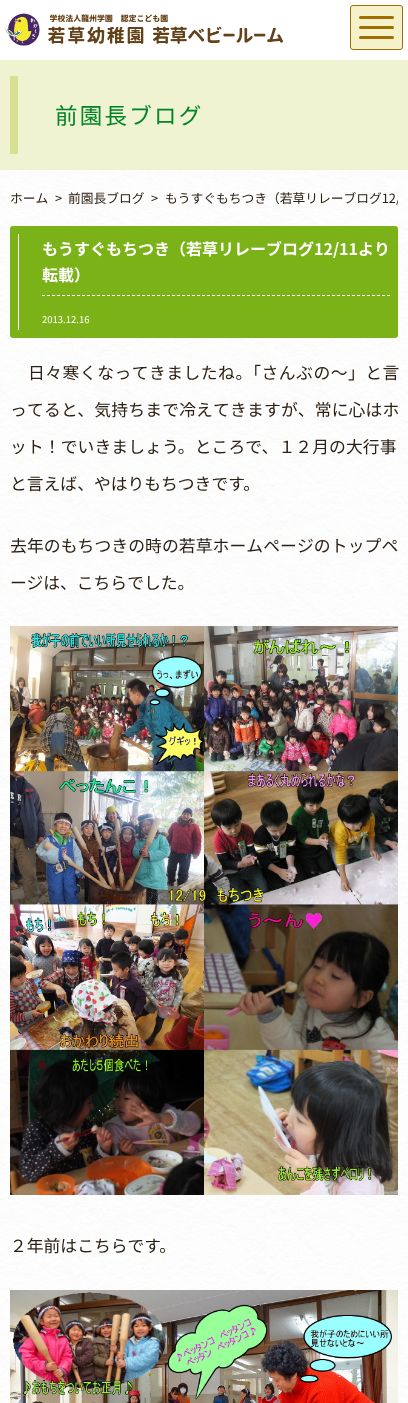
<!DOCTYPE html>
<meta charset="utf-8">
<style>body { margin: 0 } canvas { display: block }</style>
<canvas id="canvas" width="408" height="1403"></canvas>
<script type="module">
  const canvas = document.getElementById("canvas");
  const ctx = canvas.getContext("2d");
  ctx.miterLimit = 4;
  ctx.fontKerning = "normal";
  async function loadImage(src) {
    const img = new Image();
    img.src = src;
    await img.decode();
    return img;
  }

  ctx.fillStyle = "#ffffff";
  ctx.fillRect(0, 0, 408, 1403);
  ctx.drawImage(await loadImage("img1.png"), 0, 170, 408, 1233);
  ctx.drawImage(await loadImage("img2.png"), 5, 13, 278, 33);
  ctx.fillStyle = "#f5f1cb";
  ctx.beginPath();
  ctx.roundRect(350.5, 5.5, 52, 44, 2.5);
  ctx.fill();
  ctx.strokeStyle = "#a16f00";
  ctx.stroke();
  ctx.fillStyle = "#a16f00";
  ctx.beginPath();
  ctx.roundRect(359, 16, 35, 3, 1.5);
  ctx.fill();
  ctx.beginPath();
  ctx.roundRect(359, 26, 35, 3, 1.5);
  ctx.fill();
  ctx.beginPath();
  ctx.roundRect(359, 36, 35, 3, 1.5);
  ctx.fill();
  ctx.fillStyle = "#eff3d2";
  ctx.fillRect(0, 60, 408, 110);
  ctx.fillStyle = "#d8e190";
  ctx.fillRect(10, 76, 8, 78);
  ctx.letterSpacing = "2.25px";
  ctx.font = "22.5px Noto Sans CJK JP";
  ctx.fillStyle = "#008427";
  ctx.fillText("前園長ブログ", 55, 124);
  ctx.letterSpacing = "0px";
  ctx.font = "12.75px Noto Sans CJK JP";
  ctx.fillStyle = "#2c2014";
  ctx.fillText("ホーム", 10, 203);
  ctx.fillText(">", 55, 203);
  ctx.fillText("前園長ブログ", 68, 203);
  ctx.fillText(">", 151, 203);
  ctx.save();
  ctx.beginPath();
  ctx.rect(165, 190, 233, 15);
  ctx.clip();
  ctx.fillText("もうすぐもちつき（若草リレーブログ12/", 165, 203);
  ctx.restore();
  ctx.fillStyle = "#7bb218";
  ctx.beginPath();
  ctx.roundRect(10, 226, 388, 112, 3);
  ctx.fill();
  ctx.fillStyle = "#ffffff";
  ctx.fillRect(18, 234, 1, 96);
  ctx.beginPath();
  ctx.moveTo(42, 295.5);
  ctx.lineTo(390, 295.5);
  ctx.strokeStyle = "#ffffff";
  ctx.setLineDash([3, 2]);
  ctx.stroke();
  ctx.font = "bold 16px Noto Sans CJK JP";
  ctx.fillText("もうすぐもちつき（若草リレーブログ12/11より", 42, 255);
  ctx.fillText("転載）", 42, 281);
  ctx.font = "9.5px Noto Sans CJK JP";
  ctx.fillText("2013.12.16", 42, 323);
  ctx.letterSpacing = "0.5px";
  ctx.font = "16.8px Noto Sans CJK JP";
  ctx.fillStyle = "#2c2014";
  ctx.fillText("日々寒くなってきましたね。「さんぶの～」と言", 28, 379);
  ctx.letterSpacing = "0.2px";
  ctx.fillText("ってると、気持ちまで冷えてきますが、常に心はホ", 10, 416);
  ctx.letterSpacing = "0.1px";
  ctx.fillText("ット！でいきましょう。ところで、１２月の大行事", 10, 453);
  ctx.letterSpacing = "0px";
  ctx.fillText("と言えば、やはりもちつきです。", 10, 490);
  ctx.letterSpacing = "0.1px";
  ctx.fillText("去年のもちつきの時の若草ホームページのトップペ", 10, 552);
  ctx.letterSpacing = "0px";
  ctx.fillText("ージは、こちらでした。", 10, 589);
  ctx.drawImage(await loadImage("img3.png"), 10, 626, 388, 569);
  ctx.fillText("２年前はこちらです。", 10, 1252);
  ctx.drawImage(await loadImage("img4.png"), 10, 1290, 388, 113);
</script>
